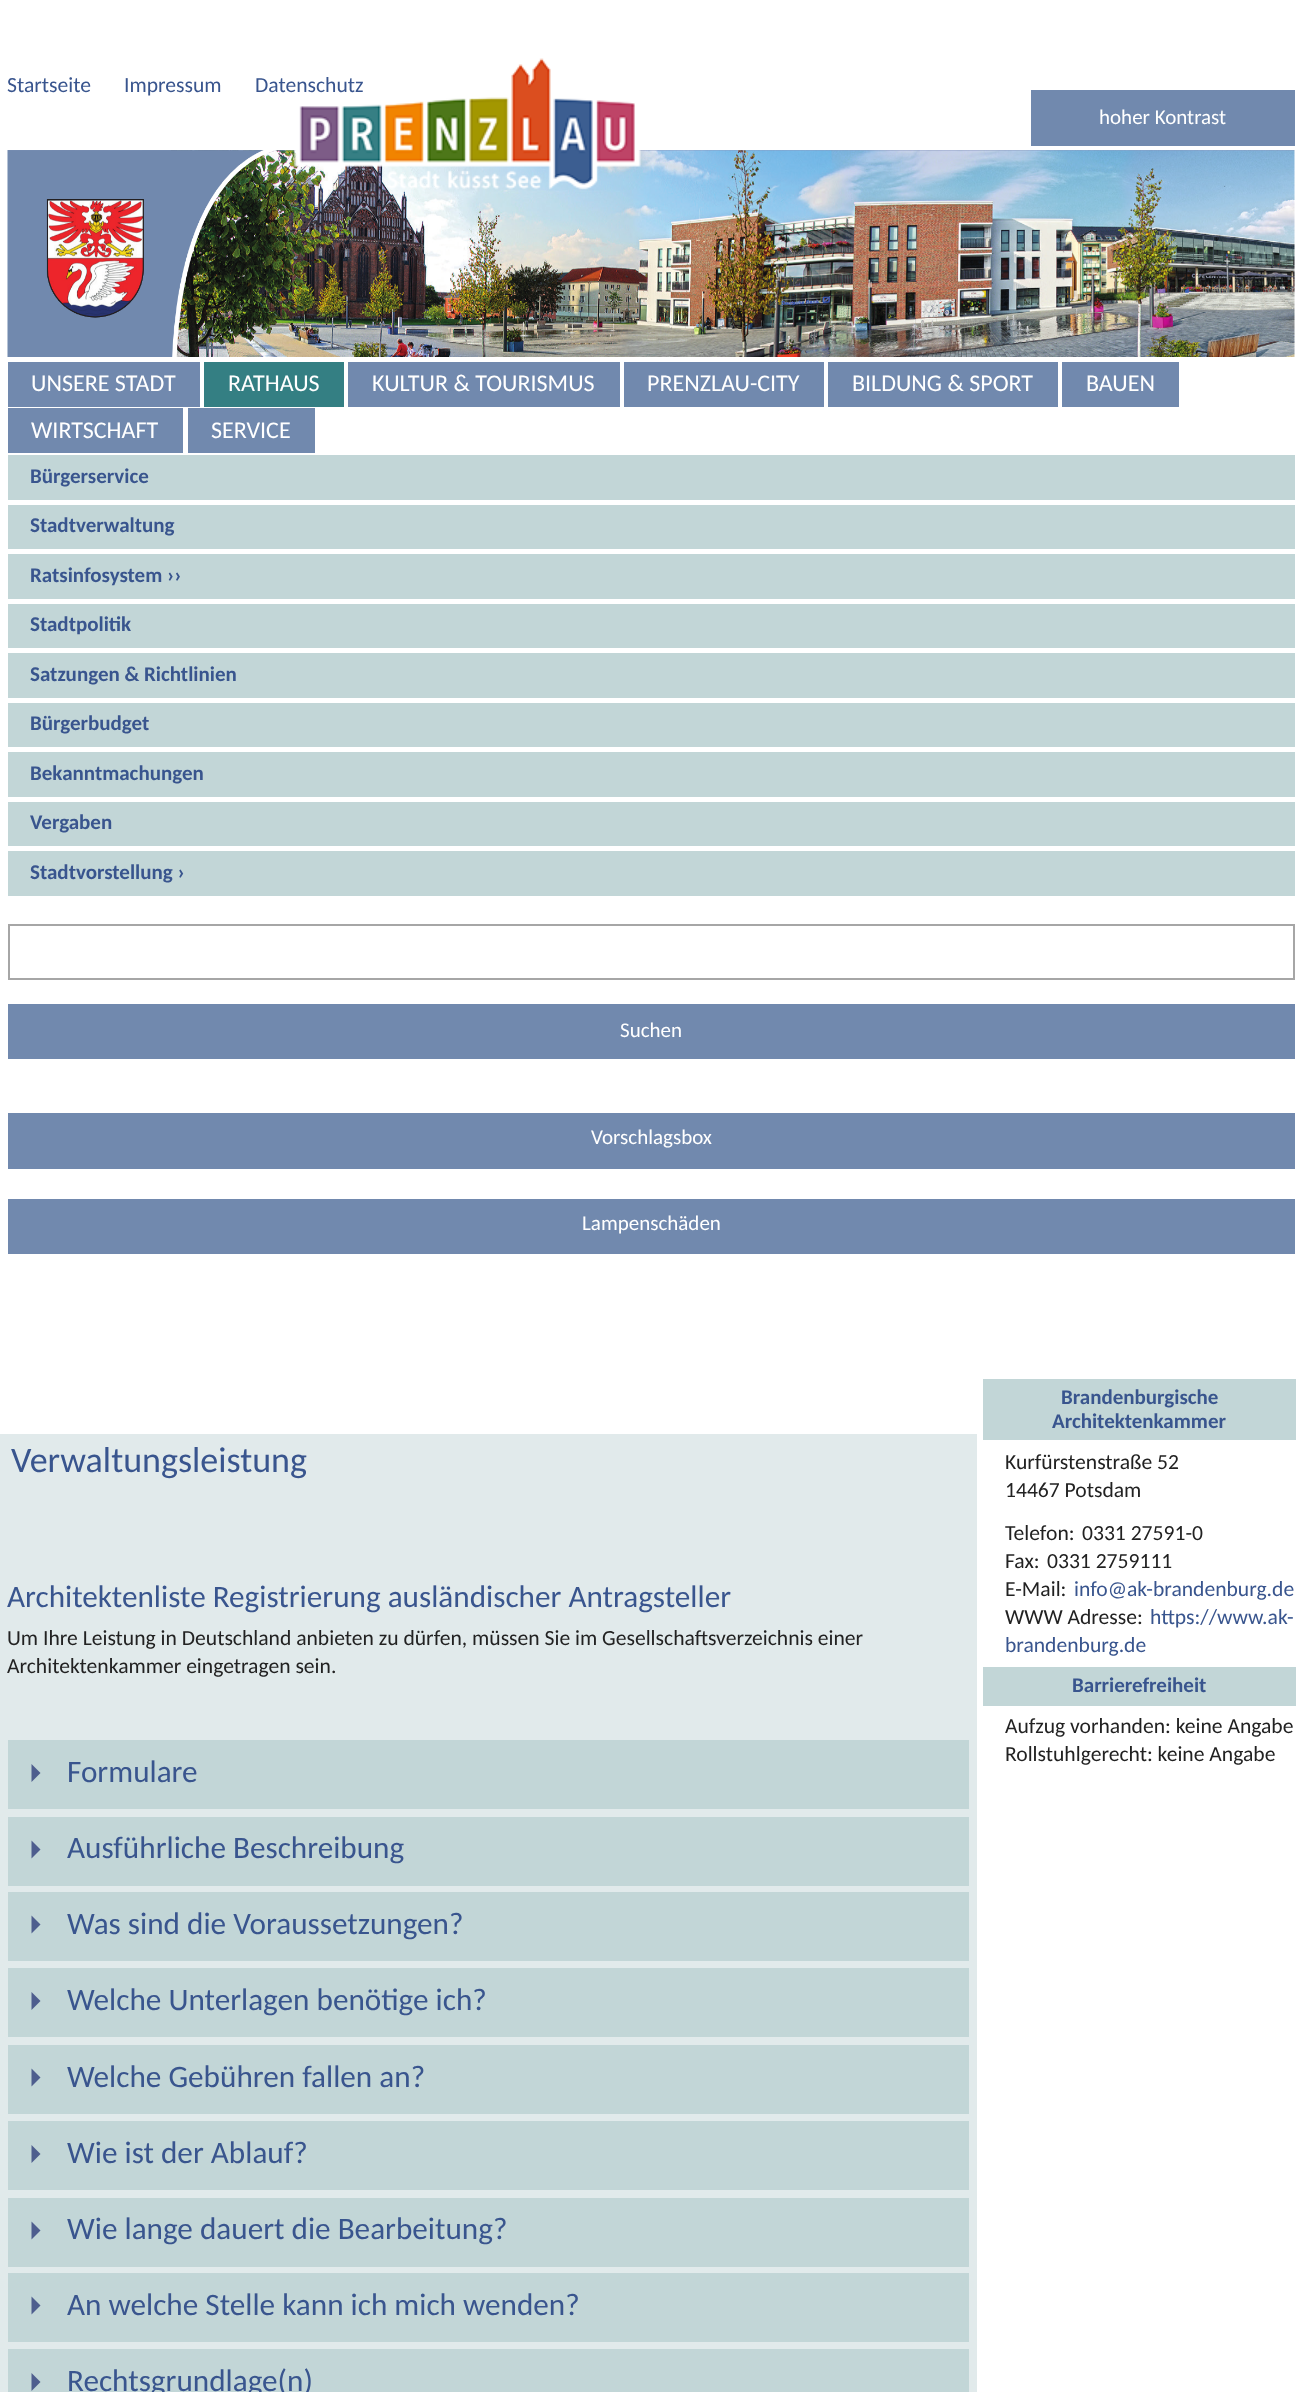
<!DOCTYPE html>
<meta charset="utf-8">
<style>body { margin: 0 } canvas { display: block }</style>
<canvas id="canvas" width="1301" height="2392"></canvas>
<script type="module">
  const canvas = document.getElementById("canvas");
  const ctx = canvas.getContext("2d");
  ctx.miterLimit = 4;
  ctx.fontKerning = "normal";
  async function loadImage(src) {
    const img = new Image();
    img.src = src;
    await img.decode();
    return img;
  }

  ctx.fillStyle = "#ffffff";
  ctx.fillRect(0, 0, 1301, 2392);
  ctx.font = "21.6px Carlito";
  ctx.fillStyle = "#39558e";
  ctx.fillText("Startseite", 7, 92);
  ctx.fillText("Impressum", 124, 92);
  ctx.fillText("Datenschutz", 255, 92);
  ctx.drawImage(await loadImage("img2.png"), 7, 150, 1288, 207);
  ctx.drawImage(await loadImage("img1.png"), 293, 58, 348, 132);
  ctx.fillStyle = "#7189ae";
  ctx.fillRect(1031, 90, 264, 56);
  ctx.font = "21px Carlito";
  ctx.fillStyle = "#ffffff";
  ctx.fillText("hoher Kontrast", 1099, 124);
  ctx.fillStyle = "#7189ae";
  ctx.fillRect(8, 362, 192, 45);
  ctx.font = "24px Carlito";
  ctx.fillStyle = "#ffffff";
  ctx.fillText("UNSERE STADT", 31, 391);
  ctx.fillStyle = "#347f83";
  ctx.fillRect(204, 362, 140, 45);
  ctx.fillStyle = "#ffffff";
  ctx.fillText("RATHAUS", 228, 391);
  ctx.fillStyle = "#7189ae";
  ctx.fillRect(348, 362, 272, 45);
  ctx.fillStyle = "#ffffff";
  ctx.fillText("KULTUR & TOURISMUS", 372, 391);
  ctx.fillStyle = "#7189ae";
  ctx.fillRect(624, 362, 200, 45);
  ctx.fillStyle = "#ffffff";
  ctx.fillText("PRENZLAU-CITY", 647, 391);
  ctx.fillStyle = "#7189ae";
  ctx.fillRect(828, 362, 230, 45);
  ctx.fillStyle = "#ffffff";
  ctx.fillText("BILDUNG & SPORT", 852, 391);
  ctx.fillStyle = "#7189ae";
  ctx.fillRect(1062, 362, 117, 45);
  ctx.fillStyle = "#ffffff";
  ctx.fillText("BAUEN", 1086, 391);
  ctx.fillStyle = "#7189ae";
  ctx.fillRect(8, 408, 175, 45);
  ctx.fillStyle = "#ffffff";
  ctx.fillText("WIRTSCHAFT", 31, 438);
  ctx.fillStyle = "#7189ae";
  ctx.fillRect(188, 408, 127, 45);
  ctx.fillStyle = "#ffffff";
  ctx.fillText("SERVICE", 211, 438);
  ctx.fillStyle = "#c2d6d7";
  ctx.fillRect(8, 455, 1287, 441);
  ctx.fillStyle = "#ffffff";
  ctx.fillRect(8, 500, 1287, 5);
  ctx.font = "bold 21px Carlito";
  ctx.fillStyle = "#39558e";
  ctx.fillText("Bürgerservice", 30, 483);
  ctx.fillStyle = "#ffffff";
  ctx.fillRect(8, 549, 1287, 5);
  ctx.fillStyle = "#39558e";
  ctx.fillText("Stadtverwaltung", 30, 532);
  ctx.fillStyle = "#ffffff";
  ctx.fillRect(8, 599, 1287, 5);
  ctx.fillStyle = "#39558e";
  ctx.fillText("Ratsinfosystem ››", 30, 582);
  ctx.fillStyle = "#ffffff";
  ctx.fillRect(8, 648, 1287, 5);
  ctx.fillStyle = "#39558e";
  ctx.fillText("Stadtpolitik", 30, 631);
  ctx.fillStyle = "#ffffff";
  ctx.fillRect(8, 698, 1287, 5);
  ctx.fillStyle = "#39558e";
  ctx.fillText("Satzungen & Richtlinien", 30, 681);
  ctx.fillStyle = "#ffffff";
  ctx.fillRect(8, 747, 1287, 5);
  ctx.fillStyle = "#39558e";
  ctx.fillText("Bürgerbudget", 30, 730);
  ctx.fillStyle = "#ffffff";
  ctx.fillRect(8, 797, 1287, 5);
  ctx.fillStyle = "#39558e";
  ctx.fillText("Bekanntmachungen", 30, 780);
  ctx.fillStyle = "#ffffff";
  ctx.fillRect(8, 846, 1287, 5);
  ctx.fillStyle = "#39558e";
  ctx.fillText("Vergaben", 30, 829);
  ctx.fillText("Stadtvorstellung ›", 30, 879);
  ctx.strokeStyle = "#a6a6a6";
  ctx.lineWidth = 2;
  ctx.strokeRect(9, 925, 1285, 54);
  ctx.fillStyle = "#7189ae";
  ctx.fillRect(8, 1004, 1287, 55);
  ctx.font = "21px Carlito";
  ctx.fillStyle = "#ffffff";
  ctx.fillText("Suchen", 620, 1037);
  ctx.fillStyle = "#7189ae";
  ctx.fillRect(8, 1113, 1287, 56);
  ctx.fillStyle = "#ffffff";
  ctx.fillText("Vorschlagsbox", 591, 1144);
  ctx.fillStyle = "#7189ae";
  ctx.fillRect(8, 1199, 1287, 55);
  ctx.fillStyle = "#ffffff";
  ctx.fillText("Lampenschäden", 582, 1230);
  ctx.fillStyle = "#e1eaeb";
  ctx.fillRect(0, 1434, 977, 958);
  ctx.font = "36px Carlito";
  ctx.fillStyle = "#39558e";
  ctx.fillText("Verwaltungsleistung", 11, 1472);
  ctx.fillStyle = "#c2d6d7";
  ctx.fillRect(983, 1379, 313, 61);
  ctx.font = "bold 21px Carlito";
  ctx.fillStyle = "#39558e";
  ctx.fillText("Brandenburgische", 1061, 1404);
  ctx.fillText("Architektenkammer", 1052, 1428);
  ctx.font = "21.6px Carlito";
  ctx.fillStyle = "#222222";
  ctx.fillText("Kurfürstenstraße 52", 1005, 1469);
  ctx.fillText("14467 Potsdam", 1005, 1497);
  ctx.fillText("Telefon:", 1005, 1540);
  ctx.fillText("0331 27591-0", 1082, 1540);
  ctx.fillText("Fax:", 1005, 1568);
  ctx.fillText("0331 2759111", 1047, 1568);
  ctx.fillText("E-Mail:", 1005, 1596);
  ctx.fillStyle = "#39558e";
  ctx.fillText("info@ak-brandenburg.de", 1074, 1596);
  ctx.fillStyle = "#222222";
  ctx.fillText("WWW Adresse:", 1005, 1624);
  ctx.fillStyle = "#39558e";
  ctx.fillText("https://www.ak-", 1150, 1624);
  ctx.fillText("brandenburg.de", 1005, 1652);
  ctx.fillStyle = "#c2d6d7";
  ctx.fillRect(983, 1667, 313, 39);
  ctx.font = "bold 21px Carlito";
  ctx.fillStyle = "#39558e";
  ctx.fillText("Barrierefreiheit", 1072, 1692);
  ctx.font = "21.6px Carlito";
  ctx.fillStyle = "#222222";
  ctx.fillText("Aufzug vorhanden: keine Angabe", 1005, 1733);
  ctx.fillText("Rollstuhlgerecht: keine Angabe", 1005, 1761);
  ctx.font = "31.2px Carlito";
  ctx.fillStyle = "#39558e";
  ctx.fillText("Architektenliste Registrierung ausländischer Antragsteller", 7, 1607);
  ctx.font = "21.6px Carlito";
  ctx.fillStyle = "#222222";
  ctx.fillText("Um Ihre Leistung in Deutschland anbieten zu dürfen, müssen Sie", 7, 1645);
  ctx.fillText("im Gesellschaftsverzeichnis einer", 575, 1645);
  ctx.fillText("Architektenkammer eingetragen sein.", 7, 1673);
  ctx.fillStyle = "#c2d6d7";
  ctx.fillRect(8, 1740, 961, 69);
  ctx.fillStyle = "#4e5e8e";
  ctx.beginPath();
  ctx.moveTo(31.5, 1782);
  ctx.lineTo(31.5, 1764);
  ctx.lineTo(40.5, 1773);
  ctx.closePath();
  ctx.fill();
  ctx.font = "31.2px Carlito";
  ctx.fillStyle = "#39558e";
  ctx.fillText("Formulare", 67, 1782);
  ctx.fillStyle = "#c2d6d7";
  ctx.fillRect(8, 1817, 961, 69);
  ctx.fillStyle = "#4e5e8e";
  ctx.beginPath();
  ctx.moveTo(31.5, 1858.5);
  ctx.lineTo(31.5, 1840.5);
  ctx.lineTo(40.5, 1849.5);
  ctx.closePath();
  ctx.fill();
  ctx.fillStyle = "#39558e";
  ctx.fillText("Ausführliche Beschreibung", 67, 1858);
  ctx.fillStyle = "#c2d6d7";
  ctx.fillRect(8, 1892, 961, 69);
  ctx.fillStyle = "#4e5e8e";
  ctx.beginPath();
  ctx.moveTo(31.5, 1933.5);
  ctx.lineTo(31.5, 1915.5);
  ctx.lineTo(40.5, 1924.5);
  ctx.closePath();
  ctx.fill();
  ctx.fillStyle = "#39558e";
  ctx.fillText("Was sind die Voraussetzungen?", 67, 1934);
  ctx.fillStyle = "#c2d6d7";
  ctx.fillRect(8, 1968, 961, 69);
  ctx.fillStyle = "#4e5e8e";
  ctx.beginPath();
  ctx.moveTo(31.5, 2010);
  ctx.lineTo(31.5, 1992);
  ctx.lineTo(40.5, 2001);
  ctx.closePath();
  ctx.fill();
  ctx.fillStyle = "#39558e";
  ctx.fillText("Welche Unterlagen benötige ich?", 67, 2010);
  ctx.fillStyle = "#c2d6d7";
  ctx.fillRect(8, 2045, 961, 69);
  ctx.fillStyle = "#4e5e8e";
  ctx.beginPath();
  ctx.moveTo(31.5, 2086.5);
  ctx.lineTo(31.5, 2068.5);
  ctx.lineTo(40.5, 2077.5);
  ctx.closePath();
  ctx.fill();
  ctx.fillStyle = "#39558e";
  ctx.fillText("Welche Gebühren fallen an?", 67, 2087);
  ctx.fillStyle = "#c2d6d7";
  ctx.fillRect(8, 2121, 961, 69);
  ctx.fillStyle = "#4e5e8e";
  ctx.beginPath();
  ctx.moveTo(31.5, 2163);
  ctx.lineTo(31.5, 2145);
  ctx.lineTo(40.5, 2154);
  ctx.closePath();
  ctx.fill();
  ctx.fillStyle = "#39558e";
  ctx.fillText("Wie ist der Ablauf?", 67, 2163);
  ctx.fillStyle = "#c2d6d7";
  ctx.fillRect(8, 2198, 961, 69);
  ctx.fillStyle = "#4e5e8e";
  ctx.beginPath();
  ctx.moveTo(31.5, 2239.5);
  ctx.lineTo(31.5, 2221.5);
  ctx.lineTo(40.5, 2230.5);
  ctx.closePath();
  ctx.fill();
  ctx.fillStyle = "#39558e";
  ctx.fillText("Wie lange dauert die Bearbeitung?", 67, 2239);
  ctx.fillStyle = "#c2d6d7";
  ctx.fillRect(8, 2273, 961, 69);
  ctx.fillStyle = "#4e5e8e";
  ctx.beginPath();
  ctx.moveTo(31.5, 2314.5);
  ctx.lineTo(31.5, 2296.5);
  ctx.lineTo(40.5, 2305.5);
  ctx.closePath();
  ctx.fill();
  ctx.fillStyle = "#39558e";
  ctx.fillText("An welche Stelle kann ich mich wenden?", 67, 2315);
  ctx.fillStyle = "#c2d6d7";
  ctx.fillRect(8, 2349, 961, 43);
  ctx.fillStyle = "#4e5e8e";
  ctx.beginPath();
  ctx.moveTo(31.5, 2391);
  ctx.lineTo(31.5, 2373);
  ctx.lineTo(40.5, 2382);
  ctx.closePath();
  ctx.fill();
  ctx.fillStyle = "#39558e";
  ctx.fillText("Rechtsgrundlage(n)", 67, 2391);
</script>
